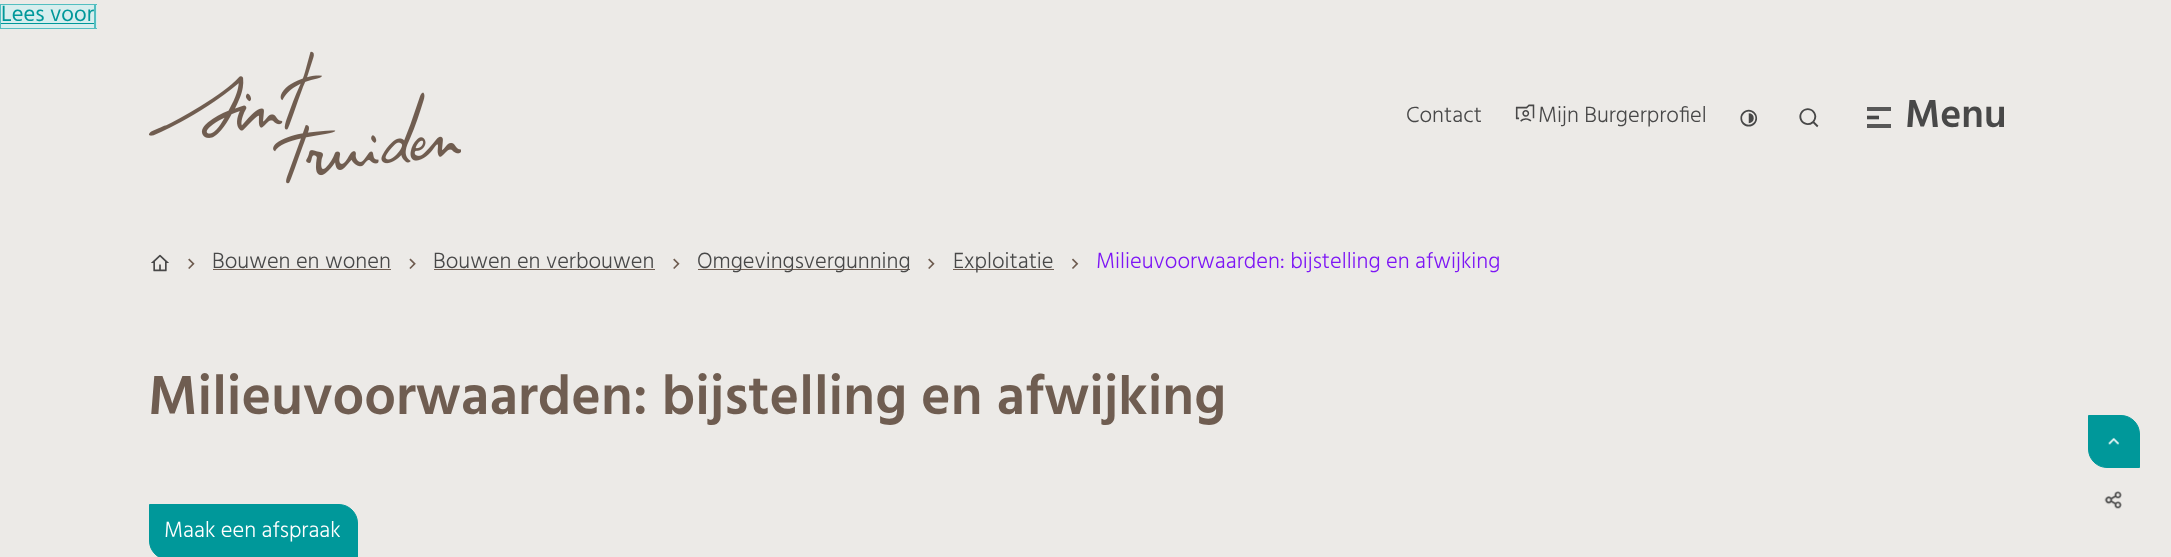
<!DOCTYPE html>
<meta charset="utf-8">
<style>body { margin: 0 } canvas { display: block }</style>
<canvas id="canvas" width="2171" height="557"></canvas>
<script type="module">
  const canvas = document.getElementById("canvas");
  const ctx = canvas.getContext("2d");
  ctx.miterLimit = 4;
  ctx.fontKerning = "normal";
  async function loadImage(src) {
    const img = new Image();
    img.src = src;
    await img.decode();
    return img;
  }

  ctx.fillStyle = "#eceae7";
  ctx.fillRect(0, 0, 2171, 557);
  ctx.fillStyle = "#d7eeee";
  ctx.fillRect(1, 5, 93, 23);
  ctx.font = "22.5px Hind";
  ctx.fillStyle = "#00989a";
  ctx.fillText("Lees voor", 1, 21);
  ctx.fillStyle = "#53bec0";
  ctx.fillRect(0, 4, 94, 1);
  ctx.fillRect(0, 28, 94, 1);
  ctx.fillRect(0, 4, 1, 25);
  ctx.fillStyle = "#d7eeee";
  ctx.fillRect(96, 4, 1, 25);
  ctx.fillStyle = "#53bec0";
  ctx.fillRect(94, 4, 3, 1);
  ctx.fillRect(95, 4, 1, 25);
  ctx.fillRect(94, 28, 3, 1);
  ctx.fillStyle = "#00989a";
  ctx.fillRect(1, 23, 93, 1);
  ctx.fillStyle = "#53bec0";
  ctx.fillRect(94, 5, 1, 23);
  ctx.drawImage(await loadImage("img1.png"), 149, 51, 312, 133);
  ctx.font = "300 22.5px Hind";
  ctx.fillStyle = "#484848";
  ctx.fillText("Contact", 1406, 122);
  ctx.drawImage(await loadImage("img2.png"), 1515, 104, 20, 18);
  ctx.fillText("Mijn Burgerprofiel", 1538, 122);
  ctx.drawImage(await loadImage("img3.png"), 1740, 109, 18, 18);
  ctx.drawImage(await loadImage("img4.png"), 1799, 108, 20, 20);
  ctx.fillStyle = "#585858";
  ctx.fillRect(1867, 107, 24, 4);
  ctx.beginPath();
  ctx.moveTo(1867, 117.5);
  ctx.lineTo(1879, 117.5);
  ctx.strokeStyle = "#484848";
  ctx.lineWidth = 3.6;
  ctx.stroke();
  ctx.fillRect(1867, 124, 24, 4);
  ctx.font = "600 40px Hind";
  ctx.fillStyle = "#484848";
  ctx.fillText("Menu", 1905, 127);
  ctx.drawImage(await loadImage("img5.png"), 151, 254, 18, 18);
  ctx.drawImage(await loadImage("img6.png"), 188, 258, 7, 11);
  ctx.font = "300 22.5px Hind";
  ctx.fillText("Bouwen en wonen", 212, 268);
  ctx.fillStyle = "#6f5d51";
  ctx.fillRect(213, 269, 178, 1);
  ctx.drawImage(await loadImage("img7.png"), 409, 258, 7, 11);
  ctx.fillStyle = "#484848";
  ctx.fillText("Bouwen en verbouwen", 433, 268);
  ctx.fillStyle = "#6f5d51";
  ctx.fillRect(434, 269, 221, 1);
  ctx.drawImage(await loadImage("img6.png"), 673, 258, 7, 11);
  ctx.fillRect(698, 269, 212, 1);
  ctx.fillStyle = "#484848";
  ctx.fillText("Omgevingsvergunning", 697, 268);
  ctx.drawImage(await loadImage("img6.png"), 928, 258, 7, 11);
  ctx.fillStyle = "#6f5d51";
  ctx.fillRect(953, 269, 101, 1);
  ctx.fillStyle = "#484848";
  ctx.fillText("Exploitatie", 953, 268);
  ctx.drawImage(await loadImage("img8.png"), 1072, 258, 7, 11);
  ctx.fillStyle = "#7d16f5";
  ctx.fillText("Milieuvoorwaarden: bijstelling en afwijking", 1096, 268);
  ctx.font = "600 56.25px Hind";
  ctx.fillStyle = "#6f5d51";
  ctx.fillText("Milieuvoorwaarden: bijstelling en afwijking", 148, 414);
  ctx.fillStyle = "#00989a";
  ctx.beginPath();
  ctx.moveTo(149.5, 504.5);
  ctx.lineTo(339, 504.5);
  ctx.bezierCurveTo(349, 504.5, 357.5, 513, 357.5, 523);
  ctx.lineTo(357.5, 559.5);
  ctx.lineTo(168, 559.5);
  ctx.bezierCurveTo(158, 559.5, 149.5, 551, 149.5, 541);
  ctx.closePath();
  ctx.fill();
  ctx.strokeStyle = "#00989a";
  ctx.lineWidth = 1;
  ctx.stroke();
  ctx.font = "300 22.5px Hind";
  ctx.fillStyle = "#ffffff";
  ctx.fillText("Maak een afspraak", 164, 537);
  ctx.fillStyle = "#00989a";
  ctx.beginPath();
  ctx.roundRect(2088.5, 415.5, 51, 52, [0, 18.5, 0, 18.5]);
  ctx.fill();
  ctx.stroke();
  ctx.drawImage(await loadImage("img9.png"), 2108, 437, 12, 8);
  ctx.drawImage(await loadImage("img10.png"), 2104, 491, 18, 18);
</script>
